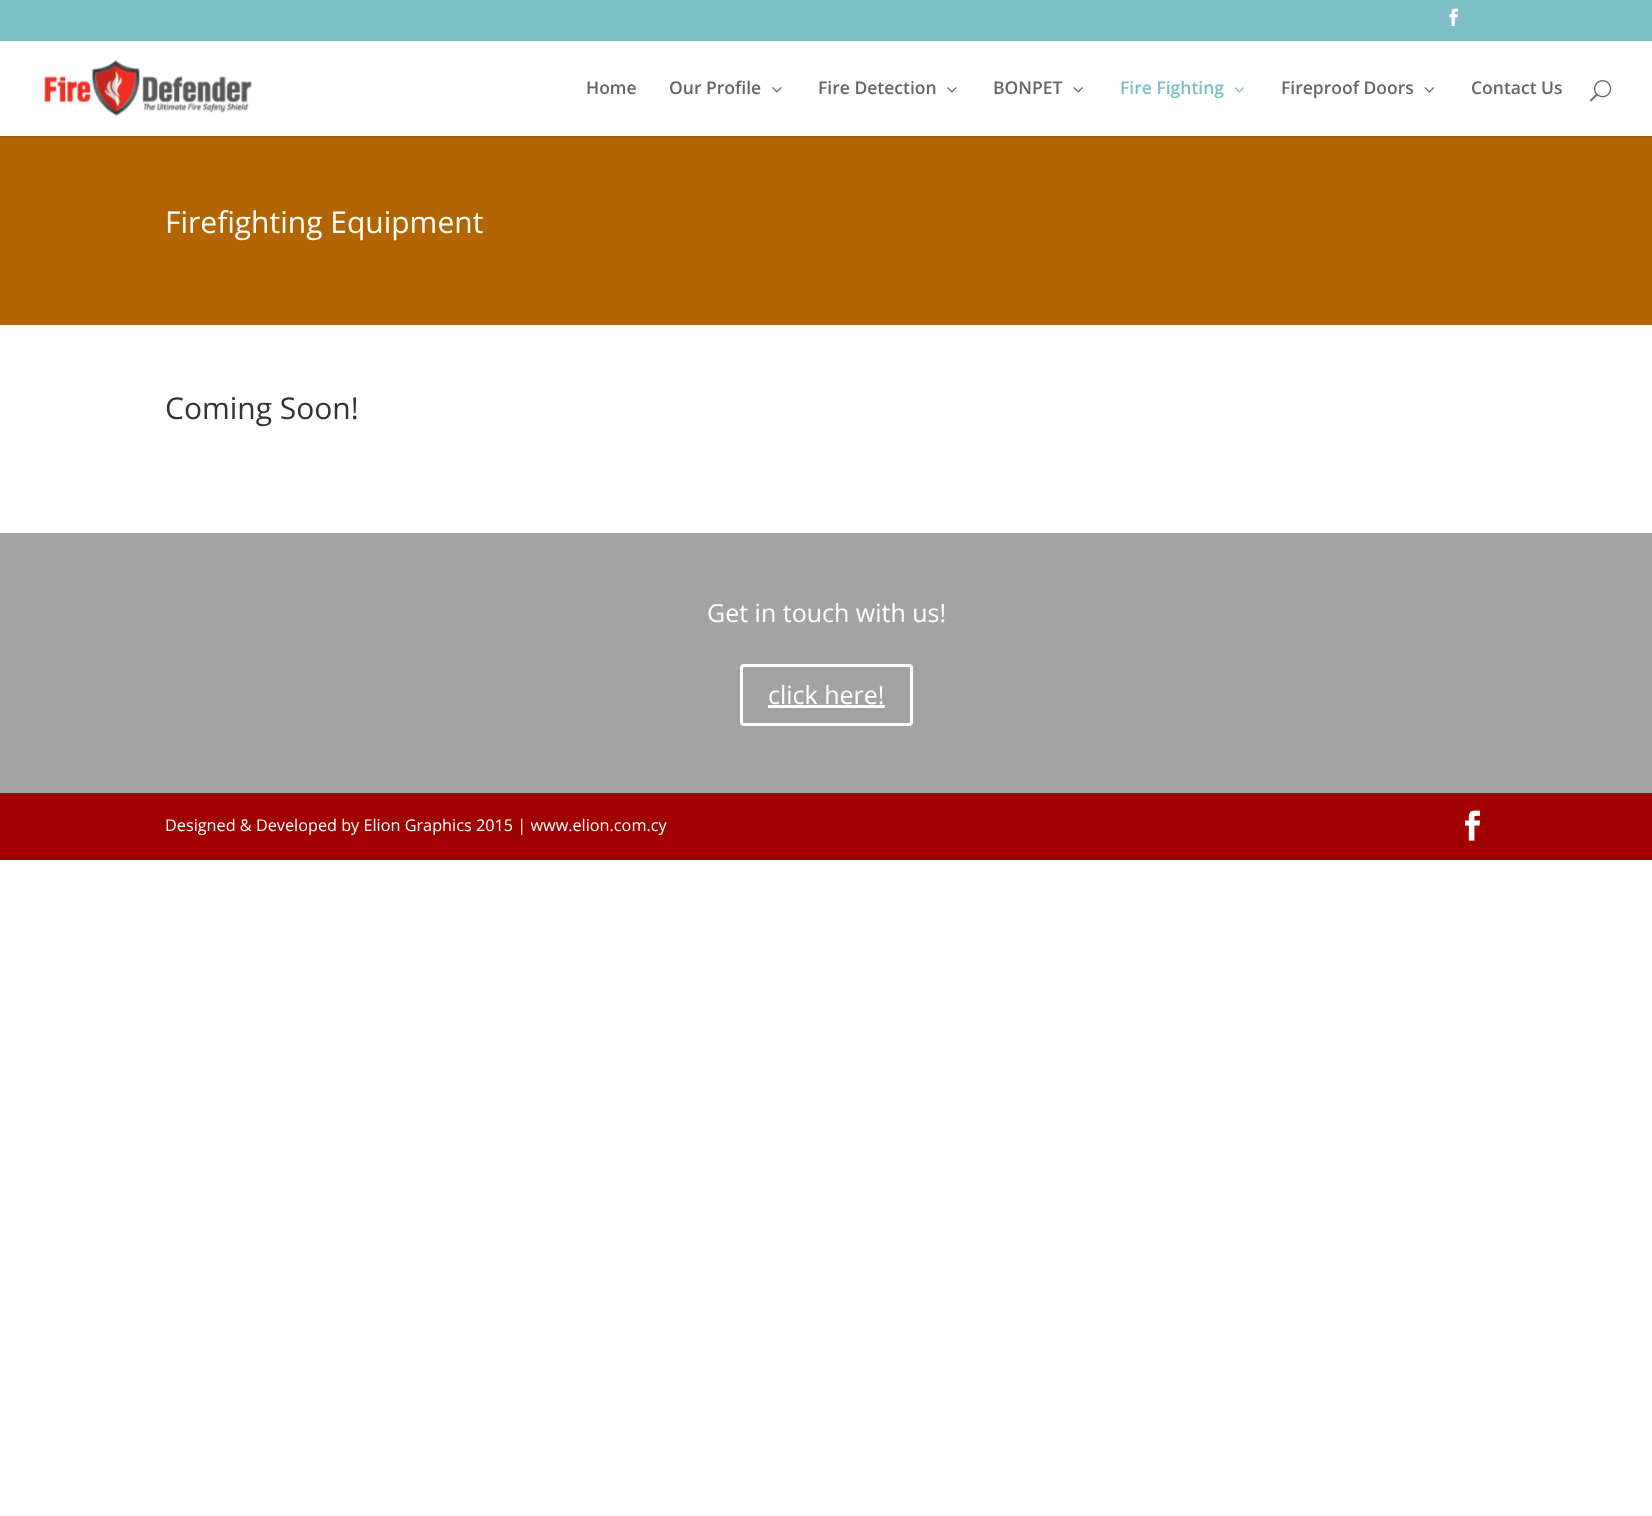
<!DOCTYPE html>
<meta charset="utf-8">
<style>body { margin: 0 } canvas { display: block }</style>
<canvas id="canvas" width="1652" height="1516"></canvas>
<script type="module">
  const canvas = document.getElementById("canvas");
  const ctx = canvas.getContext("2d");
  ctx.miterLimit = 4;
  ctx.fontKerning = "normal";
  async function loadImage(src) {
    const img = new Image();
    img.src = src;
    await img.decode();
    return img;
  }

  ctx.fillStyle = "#ffffff";
  ctx.fillRect(0, 0, 1652, 1516);
  ctx.fillStyle = "#7ebec5";
  ctx.fillRect(0, 0, 1652, 41);
  ctx.drawImage(await loadImage("img1.png"), 1449, 8, 10, 19);
  ctx.fillStyle = "#a05b00";
  ctx.beginPath();
  ctx.moveTo(0, 136);
  ctx.lineTo(0, 138);
  ctx.lineTo(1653, 138);
  ctx.lineTo(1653, 43);
  ctx.lineTo(1652, 43);
  ctx.lineTo(1652, 136);
  ctx.closePath();
  ctx.fill();
  ctx.drawImage(await loadImage("img2.png"), 44, 60, 208, 56);
  ctx.font = "600 17.5px Open Sans";
  ctx.fillStyle = "#666666";
  ctx.fillText("Home", 586, 94);
  ctx.fillText("Our Profile", 669, 94);
  ctx.drawImage(await loadImage("img3.png"), 772, 87, 10, 6);
  ctx.fillText("Fire Detection", 818, 94);
  ctx.drawImage(await loadImage("img3.png"), 947, 87, 10, 6);
  ctx.fillText("BONPET", 993, 94);
  ctx.drawImage(await loadImage("img4.png"), 1073, 87, 10, 6);
  ctx.fillStyle = "#7cbec6";
  ctx.fillText("Fire Fighting", 1120, 94);
  ctx.drawImage(await loadImage("img5.png"), 1234, 87, 10, 6);
  ctx.fillStyle = "#666666";
  ctx.fillText("Fireproof Doors", 1281, 94);
  ctx.drawImage(await loadImage("img6.png"), 1424, 87, 10, 6);
  ctx.fillText("Contact Us", 1471, 94);
  ctx.drawImage(await loadImage("img7.png"), 1590, 80, 22, 22);
  ctx.fillStyle = "#b26500";
  ctx.fillRect(0, 138, 1652, 187);
  ctx.font = "30px Open Sans";
  ctx.fillStyle = "#ffffff";
  ctx.fillText("Firefighting Equipment", 165, 233);
  ctx.fillStyle = "#333333";
  ctx.fillText("Coming Soon!", 165, 419);
  ctx.fillStyle = "#a3a3a3";
  ctx.fillRect(0, 533, 1652, 260);
  ctx.font = "25px Open Sans";
  ctx.fillStyle = "#ffffff";
  ctx.fillText("Get in touch with us!", 707, 622);
  ctx.beginPath();
  ctx.roundRect(741.5, 665.5, 170, 59, 2.5);
  ctx.strokeStyle = "#ffffff";
  ctx.lineWidth = 3;
  ctx.stroke();
  ctx.fillText("click here!", 768, 704);
  ctx.fillRect(768, 705, 117, 3);
  ctx.fillStyle = "#a00000";
  ctx.fillRect(0, 793, 1652, 67);
  ctx.font = "16.25px Open Sans";
  ctx.fillStyle = "#ffffff";
  ctx.fillText("Designed & Developed by Elion Graphics 2015 | www.elion.com.cy", 165, 831);
  ctx.drawImage(await loadImage("img8.png"), 1465, 810, 16, 31);
</script>
